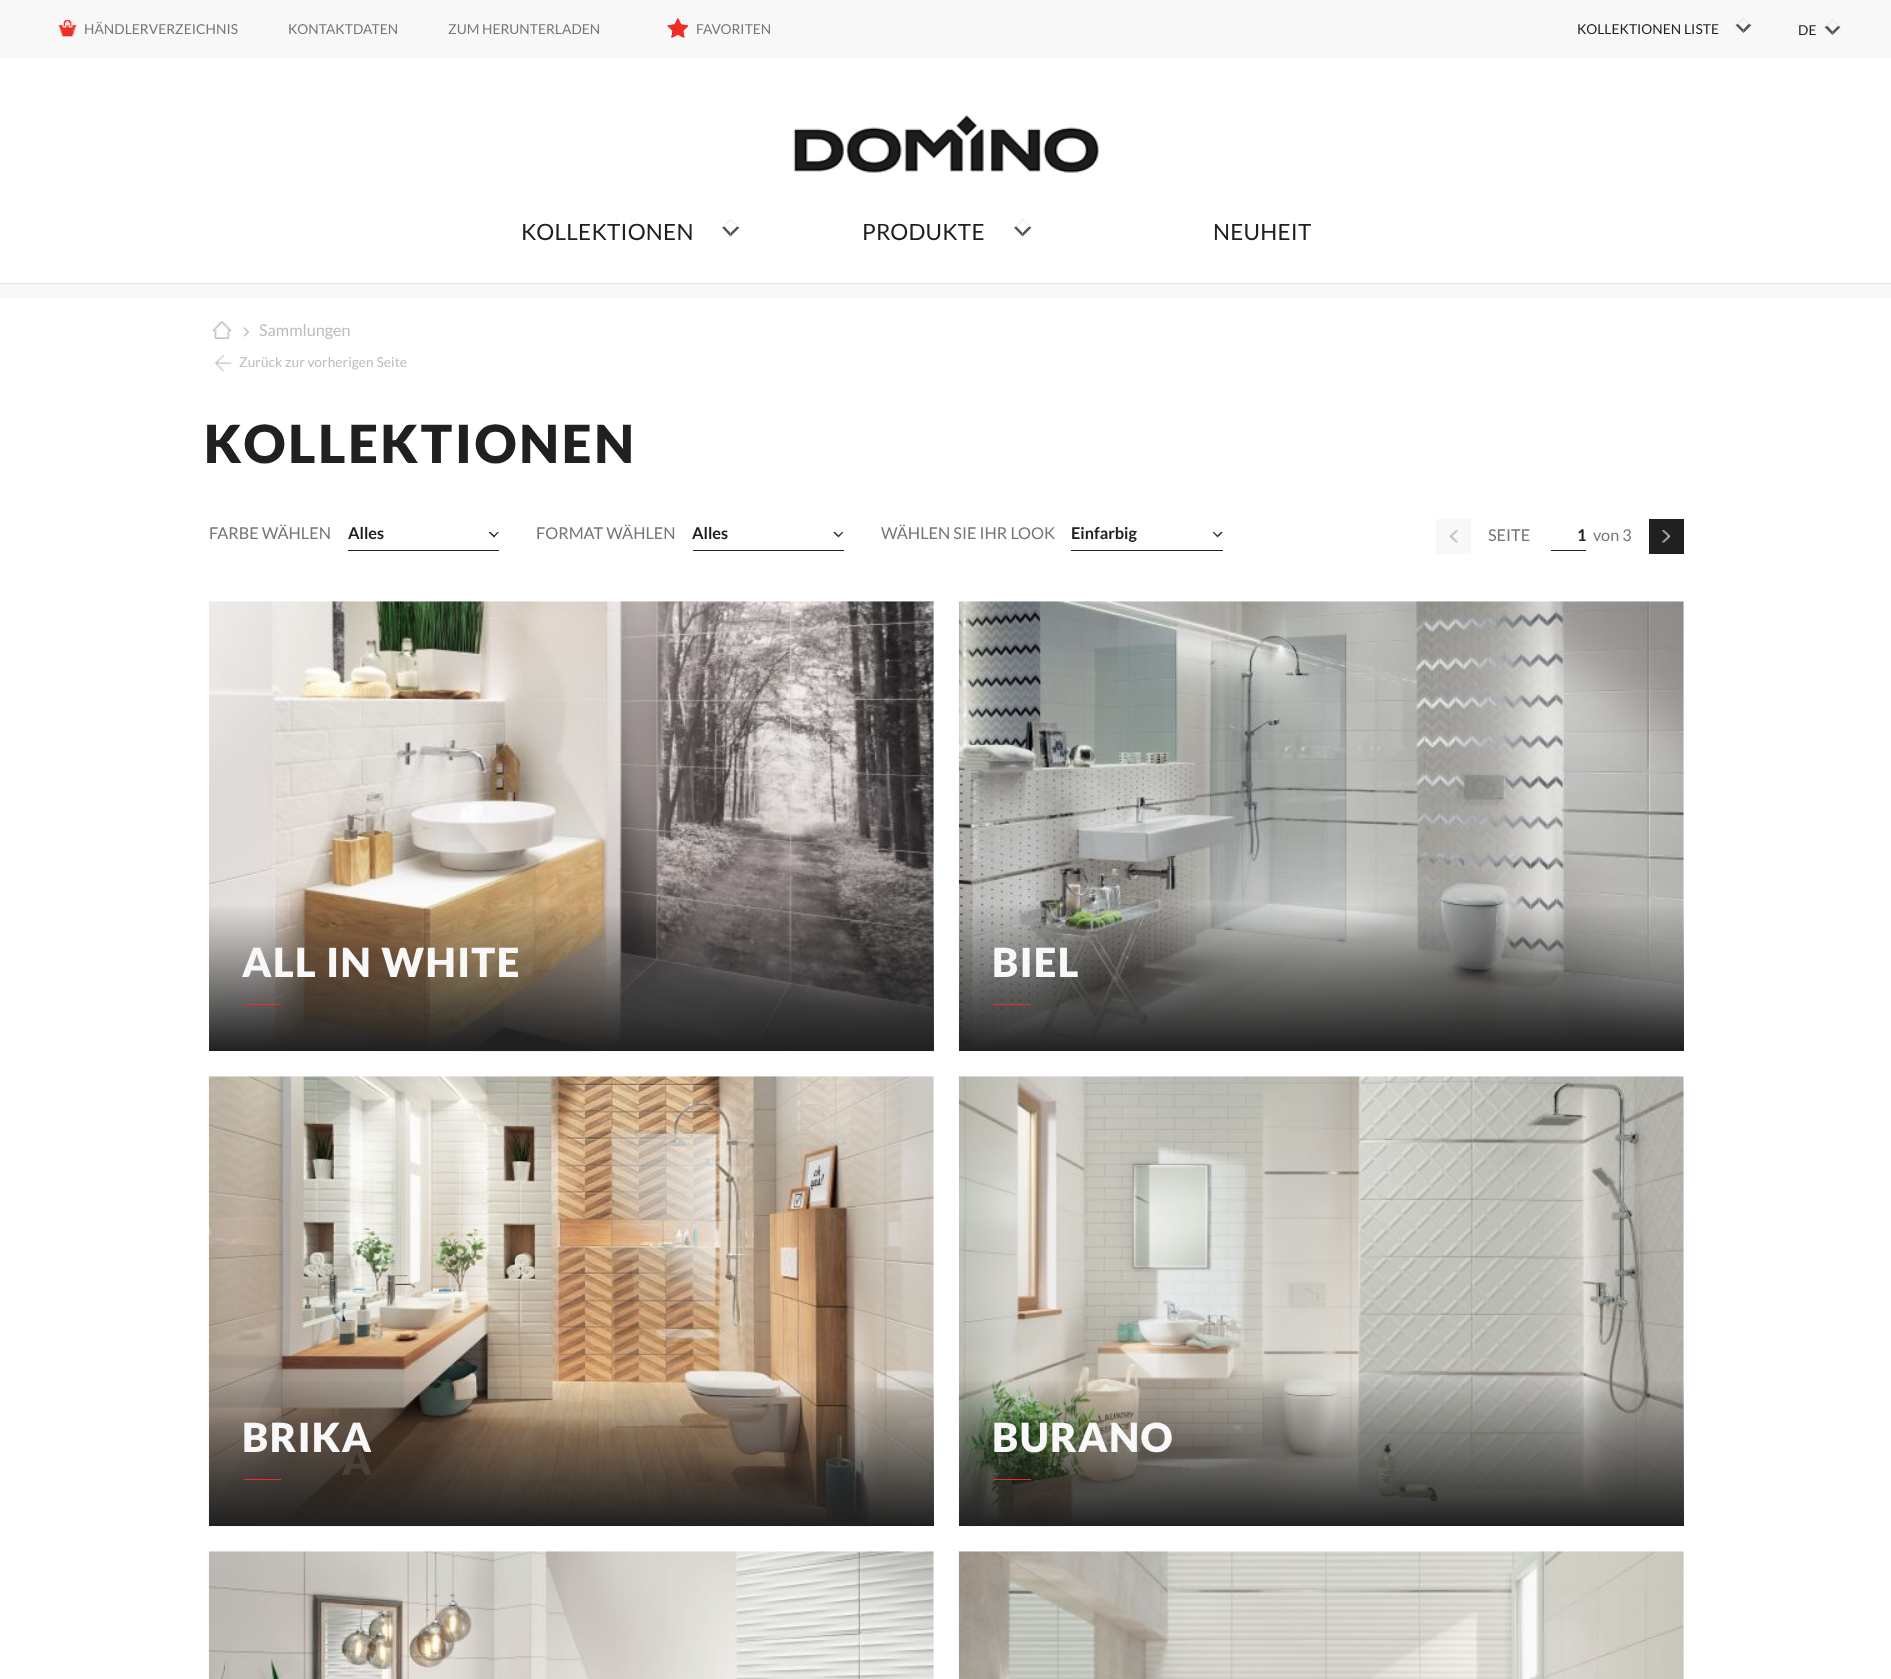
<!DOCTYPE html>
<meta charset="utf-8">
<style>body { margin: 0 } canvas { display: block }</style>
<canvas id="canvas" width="1891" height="1679"></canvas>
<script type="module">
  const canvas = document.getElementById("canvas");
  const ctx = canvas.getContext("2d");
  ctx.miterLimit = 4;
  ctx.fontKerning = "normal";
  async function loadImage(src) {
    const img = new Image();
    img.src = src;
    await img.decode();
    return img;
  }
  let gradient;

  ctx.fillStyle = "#ffffff";
  ctx.fillRect(0, 0, 1891, 1679);
  ctx.fillStyle = "#f8f8f8";
  ctx.fillRect(0, 0, 1891, 58);
  ctx.drawImage(await loadImage("img1.png"), 58, 19, 19, 18);
  ctx.letterSpacing = "0.05px";
  ctx.font = "13.75px Lato";
  ctx.fillStyle = "#767676";
  ctx.fillText("HÄNDLERVERZEICHNIS", 84, 34);
  ctx.fillText("KONTAKTDATEN", 288, 34);
  ctx.fillText("ZUM HERUNTERLADEN", 448, 34);
  ctx.drawImage(await loadImage("img2.png"), 667, 18, 21, 20);
  ctx.fillText("FAVORITEN", 696, 34);
  ctx.fillStyle = "#202020";
  ctx.fillText("KOLLEKTIONEN LISTE", 1577, 34);
  ctx.fillStyle = "#e8e8e8";
  ctx.beginPath();
  ctx.moveTo(1743.5, 17);
  ctx.lineTo(1751.5, 25);
  ctx.lineTo(1748.5, 24);
  ctx.lineTo(1743.5, 19);
  ctx.closePath();
  ctx.fill();
  ctx.fillStyle = "#545454";
  ctx.beginPath();
  ctx.moveTo(1751.5, 25);
  ctx.lineTo(1743.5, 33);
  ctx.lineTo(1743.5, 29.5);
  ctx.lineTo(1748.5, 24);
  ctx.closePath();
  ctx.fill();
  ctx.beginPath();
  ctx.moveTo(1743.5, 33);
  ctx.lineTo(1735.5, 25);
  ctx.lineTo(1738, 24);
  ctx.lineTo(1743.5, 29.5);
  ctx.closePath();
  ctx.fill();
  ctx.fillStyle = "rgba(84, 84, 84, 0.1)";
  ctx.beginPath();
  ctx.moveTo(1735.5, 25);
  ctx.lineTo(1743.5, 17);
  ctx.lineTo(1743.5, 19);
  ctx.lineTo(1738, 24);
  ctx.closePath();
  ctx.fill();
  ctx.fillStyle = "#202020";
  ctx.fillText("DE", 1798, 35);
  ctx.fillStyle = "#e8e8e8";
  ctx.beginPath();
  ctx.moveTo(1832.5, 19);
  ctx.lineTo(1840.5, 27);
  ctx.lineTo(1838, 26);
  ctx.lineTo(1832.5, 20.5);
  ctx.closePath();
  ctx.fill();
  ctx.fillStyle = "#545454";
  ctx.beginPath();
  ctx.moveTo(1840.5, 27);
  ctx.lineTo(1832.5, 35);
  ctx.lineTo(1832.5, 31.5);
  ctx.lineTo(1838, 26);
  ctx.closePath();
  ctx.fill();
  ctx.beginPath();
  ctx.moveTo(1832.5, 35);
  ctx.lineTo(1824.5, 27);
  ctx.lineTo(1827.5, 26);
  ctx.lineTo(1832.5, 31.5);
  ctx.closePath();
  ctx.fill();
  ctx.fillStyle = "rgba(84, 84, 84, 0.1)";
  ctx.beginPath();
  ctx.moveTo(1824.5, 27);
  ctx.lineTo(1832.5, 19);
  ctx.lineTo(1832.5, 20.5);
  ctx.lineTo(1827.5, 26);
  ctx.closePath();
  ctx.fill();
  ctx.drawImage(await loadImage("img3.png"), 793, 115, 306, 58);
  ctx.fillStyle = "#f8f8f8";
  ctx.fillRect(0, 284, 1891, 14);
  ctx.fillStyle = "#e5e5e5";
  ctx.fillRect(0, 283, 1891, 1);
  ctx.letterSpacing = "0.25px";
  ctx.font = "22.5px Lato";
  ctx.fillStyle = "#202020";
  ctx.fillText("KOLLEKTIONEN", 521, 240);
  ctx.fillStyle = "#eeeeee";
  ctx.beginPath();
  ctx.moveTo(730.5, 218.5);
  ctx.lineTo(739.5, 227.5);
  ctx.lineTo(737, 226.5);
  ctx.lineTo(730.5, 220.5);
  ctx.closePath();
  ctx.fill();
  ctx.fillStyle = "#545454";
  ctx.beginPath();
  ctx.moveTo(739.5, 227.5);
  ctx.lineTo(730.5, 236.5);
  ctx.lineTo(730.5, 233);
  ctx.lineTo(737, 226.5);
  ctx.closePath();
  ctx.fill();
  ctx.beginPath();
  ctx.moveTo(730.5, 236.5);
  ctx.lineTo(722, 227.5);
  ctx.lineTo(724.5, 226.5);
  ctx.lineTo(730.5, 233);
  ctx.closePath();
  ctx.fill();
  ctx.fillStyle = "rgba(84, 84, 84, 0.1)";
  ctx.beginPath();
  ctx.moveTo(722, 227.5);
  ctx.lineTo(730.5, 218.5);
  ctx.lineTo(730.5, 220.5);
  ctx.lineTo(724.5, 226.5);
  ctx.closePath();
  ctx.fill();
  ctx.fillStyle = "#202020";
  ctx.fillText("PRODUKTE", 862, 240);
  ctx.fillStyle = "#eeeeee";
  ctx.beginPath();
  ctx.moveTo(1022.5, 218.5);
  ctx.lineTo(1031.5, 227.5);
  ctx.lineTo(1029, 226.5);
  ctx.lineTo(1022.5, 220.5);
  ctx.closePath();
  ctx.fill();
  ctx.fillStyle = "#545454";
  ctx.beginPath();
  ctx.moveTo(1031.5, 227.5);
  ctx.lineTo(1022.5, 236.5);
  ctx.lineTo(1022.5, 233);
  ctx.lineTo(1029, 226.5);
  ctx.closePath();
  ctx.fill();
  ctx.beginPath();
  ctx.moveTo(1022.5, 236.5);
  ctx.lineTo(1014, 227.5);
  ctx.lineTo(1016.5, 226.5);
  ctx.lineTo(1022.5, 233);
  ctx.closePath();
  ctx.fill();
  ctx.fillStyle = "rgba(84, 84, 84, 0.1)";
  ctx.beginPath();
  ctx.moveTo(1014, 227.5);
  ctx.lineTo(1022.5, 218.5);
  ctx.lineTo(1022.5, 220.5);
  ctx.lineTo(1016.5, 226.5);
  ctx.closePath();
  ctx.fill();
  ctx.fillStyle = "#202020";
  ctx.fillText("NEUHEIT", 1213, 240);
  ctx.drawImage(await loadImage("img4.png"), 212, 321, 20, 18);
  ctx.drawImage(await loadImage("img5.png"), 243, 327, 6, 10);
  ctx.letterSpacing = "0px";
  ctx.font = "16.25px Lato";
  ctx.fillStyle = "#bcbcbc";
  ctx.fillText("Sammlungen", 259, 336);
  ctx.drawImage(await loadImage("img6.png"), 215, 355, 17, 17);
  ctx.letterSpacing = "0.05px";
  ctx.font = "13.75px Lato";
  ctx.fillText("Zurück zur vorherigen Seite", 239, 367);
  ctx.letterSpacing = "2.75px";
  ctx.font = "900 52.5px Lato";
  ctx.fillStyle = "#202020";
  ctx.fillText("KOLLEKTIONEN", 204, 463);
  ctx.letterSpacing = "0px";
  ctx.font = "16.25px Lato";
  ctx.fillStyle = "#767676";
  ctx.fillText("FARBE WÄHLEN", 209, 539);
  ctx.fillStyle = "#202020";
  ctx.fillRect(348, 550, 151, 1);
  ctx.font = "bold 16.25px Lato";
  ctx.fillText("Alles", 348, 539);
  ctx.beginPath();
  ctx.moveTo(499, 532);
  ctx.lineTo(494, 537.5);
  ctx.lineTo(494, 535.5);
  ctx.lineTo(497.5, 532);
  ctx.closePath();
  ctx.moveTo(494, 537.5);
  ctx.lineTo(488.5, 532);
  ctx.lineTo(490.5, 532);
  ctx.lineTo(494, 535.5);
  ctx.closePath();
  ctx.fill();
  ctx.font = "16.25px Lato";
  ctx.fillStyle = "#767676";
  ctx.fillText("FORMAT WÄHLEN", 536, 539);
  ctx.fillStyle = "#202020";
  ctx.fillRect(693, 550, 151, 1);
  ctx.font = "bold 16.25px Lato";
  ctx.fillText("Alles", 692, 539);
  ctx.beginPath();
  ctx.moveTo(843.5, 532);
  ctx.lineTo(838.5, 537.5);
  ctx.lineTo(838.5, 535.5);
  ctx.lineTo(842, 532);
  ctx.closePath();
  ctx.fill();
  ctx.beginPath();
  ctx.moveTo(838.5, 537.5);
  ctx.lineTo(833, 532);
  ctx.lineTo(835, 532);
  ctx.lineTo(838.5, 535.5);
  ctx.closePath();
  ctx.fill();
  ctx.font = "16.25px Lato";
  ctx.fillStyle = "#767676";
  ctx.fillText("WÄHLEN SIE IHR LOOK", 881, 539);
  ctx.fillStyle = "#202020";
  ctx.fillRect(1071, 550, 152, 1);
  ctx.font = "bold 16.25px Lato";
  ctx.fillText("Einfarbig", 1071, 539);
  ctx.beginPath();
  ctx.moveTo(1223, 532);
  ctx.lineTo(1217.5, 537.5);
  ctx.lineTo(1217.5, 535.5);
  ctx.lineTo(1221, 532);
  ctx.closePath();
  ctx.fill();
  ctx.beginPath();
  ctx.moveTo(1217.5, 537.5);
  ctx.lineTo(1212.5, 532);
  ctx.lineTo(1214, 532);
  ctx.lineTo(1217.5, 535.5);
  ctx.closePath();
  ctx.fill();
  ctx.fillStyle = "#f8f8f8";
  ctx.fillRect(1436, 519, 35, 35);
  ctx.drawImage(await loadImage("img7.png"), 1450, 530, 8, 13);
  ctx.font = "16.25px Lato";
  ctx.fillStyle = "#767676";
  ctx.fillText("SEITE", 1488, 541);
  ctx.font = "bold 16.25px Lato";
  ctx.fillStyle = "#202020";
  ctx.fillText("1", 1577, 541);
  ctx.fillRect(1551, 550, 35, 1);
  ctx.font = "16.25px Lato";
  ctx.fillStyle = "#767676";
  ctx.fillText("von 3", 1593, 541);
  ctx.fillStyle = "#202020";
  ctx.fillRect(1649, 519, 35, 35);
  ctx.drawImage(await loadImage("img8.png"), 1662, 530, 8, 13);
  ctx.drawImage(await loadImage("img9.png"), 209, 601, 725, 451);
  gradient = ctx.createLinearGradient(571, 1051, 571, 601);
  gradient.addColorStop(0, "#202020");
  gradient.addColorStop(0.33, "rgba(32, 32, 32, 0)");
  gradient.addColorStop(1, "rgba(32, 32, 32, 0)");
  ctx.fillStyle = gradient;
  ctx.fillRect(209, 906, 725, 145);
  ctx.letterSpacing = "1.4px";
  ctx.font = "900 40px Lato";
  ctx.fillStyle = "#f8f8f8";
  ctx.fillText("ALL IN WHITE", 242, 977);
  ctx.fillStyle = "#ee2e24";
  ctx.fillRect(244, 1004, 37, 1);
  ctx.drawImage(await loadImage("img10.png"), 958, 601, 726, 451);
  gradient = ctx.createLinearGradient(1321, 1051, 1321, 601);
  gradient.addColorStop(0, "#202020");
  gradient.addColorStop(0.33, "rgba(32, 32, 32, 0)");
  gradient.addColorStop(1, "rgba(32, 32, 32, 0)");
  ctx.fillStyle = gradient;
  ctx.fillRect(959, 906, 725, 145);
  ctx.fillStyle = "#f8f8f8";
  ctx.fillText("BIEL", 992, 977);
  ctx.fillStyle = "#ee2e24";
  ctx.fillRect(994, 1004, 37, 1);
  ctx.drawImage(await loadImage("img11.png"), 208, 1076, 726, 451);
  gradient = ctx.createLinearGradient(571, 1526, 571, 1076);
  gradient.addColorStop(0, "#202020");
  gradient.addColorStop(0.33, "rgba(32, 32, 32, 0)");
  gradient.addColorStop(1, "rgba(32, 32, 32, 0)");
  ctx.fillStyle = gradient;
  ctx.fillRect(209, 1381, 725, 145);
  ctx.fillStyle = "#f8f8f8";
  ctx.fillText("BRIKA", 242, 1452);
  ctx.fillStyle = "#ee2e24";
  ctx.fillRect(244, 1479, 37, 1);
  ctx.fillStyle = "#4a4139";
  ctx.fillText("A", 342, 1475);
  ctx.drawImage(await loadImage("img12.png"), 958, 1076, 726, 451);
  gradient = ctx.createLinearGradient(1321, 1526, 1321, 1076);
  gradient.addColorStop(0, "#202020");
  gradient.addColorStop(0.33, "rgba(32, 32, 32, 0)");
  gradient.addColorStop(1, "rgba(32, 32, 32, 0)");
  ctx.fillStyle = gradient;
  ctx.fillRect(959, 1381, 725, 145);
  ctx.fillStyle = "#f8f8f8";
  ctx.fillText("BURANO", 992, 1452);
  ctx.fillStyle = "#ee2e24";
  ctx.fillRect(994, 1479, 37, 1);
  ctx.drawImage(await loadImage("img13.png"), 208, 1551, 726, 128);
  ctx.drawImage(await loadImage("img14.png"), 958, 1551, 726, 128);
</script>
